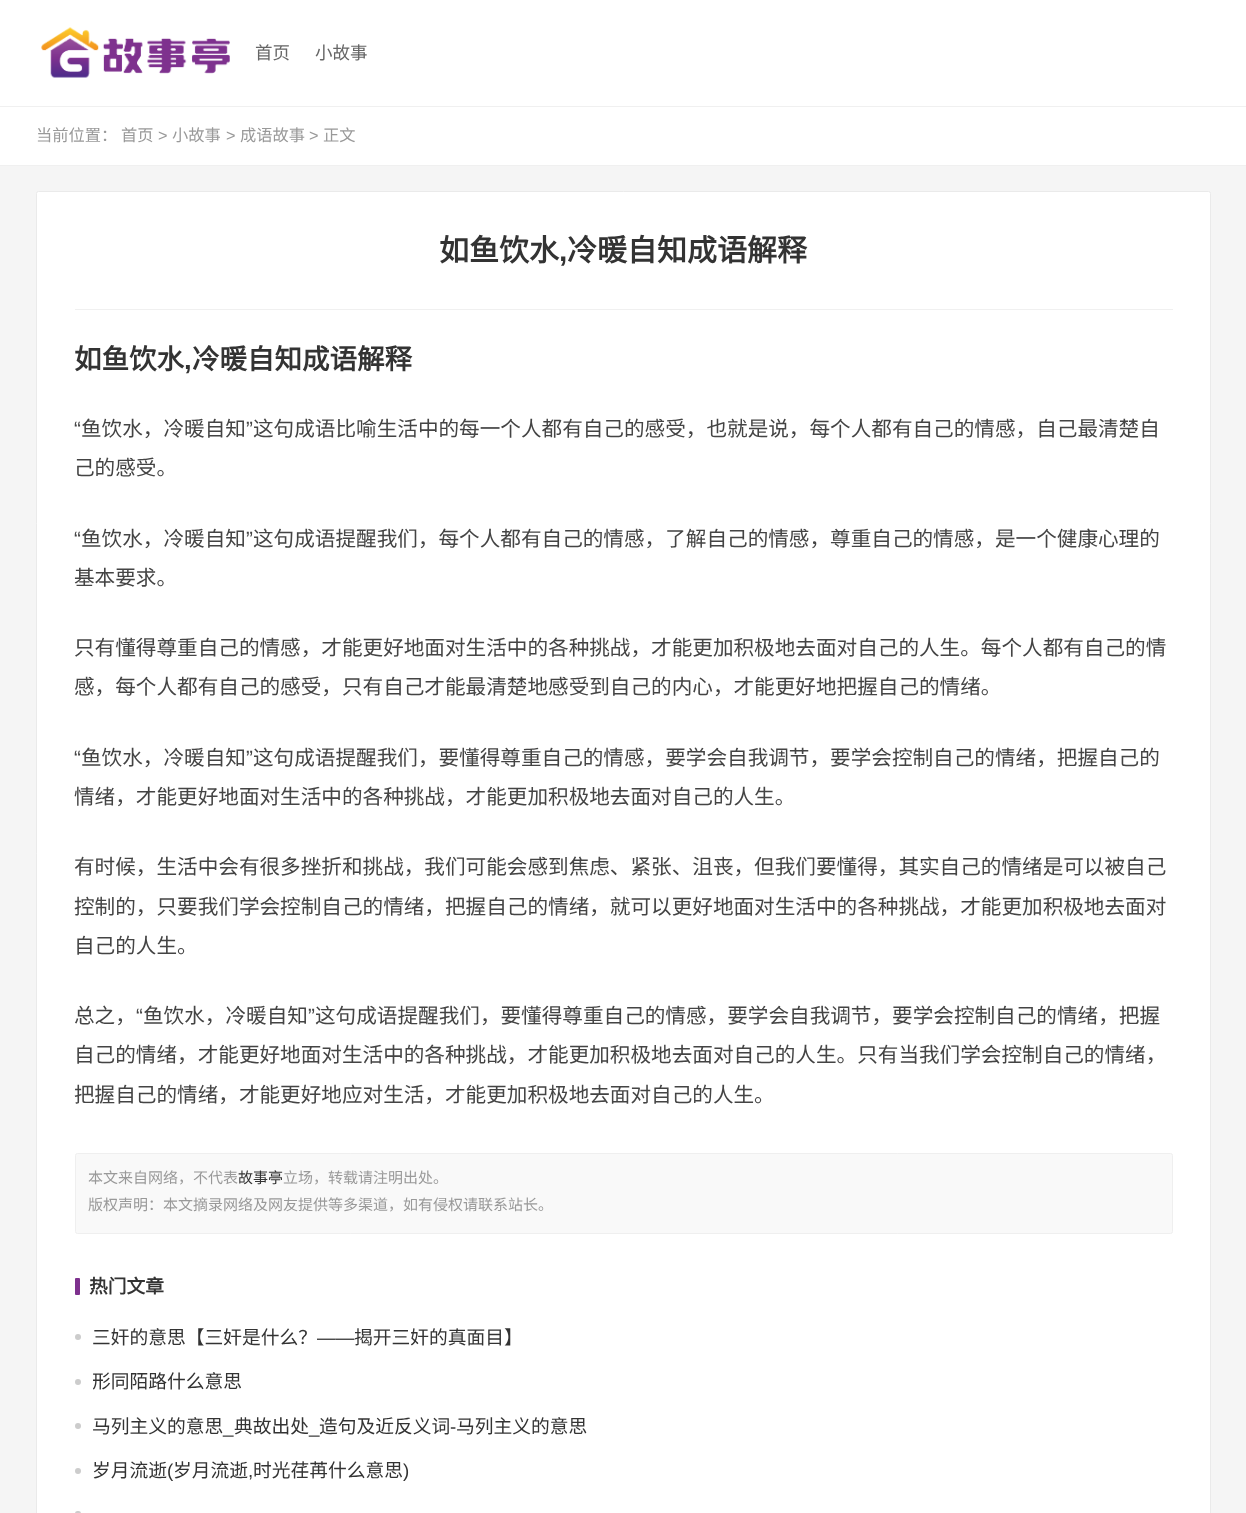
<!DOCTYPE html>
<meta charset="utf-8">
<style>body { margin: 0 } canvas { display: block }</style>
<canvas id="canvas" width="1246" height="1513"></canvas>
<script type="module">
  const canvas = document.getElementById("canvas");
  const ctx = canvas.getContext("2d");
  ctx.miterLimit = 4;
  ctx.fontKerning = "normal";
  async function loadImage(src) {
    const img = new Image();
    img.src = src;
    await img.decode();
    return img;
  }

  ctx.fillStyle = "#f5f5f5";
  ctx.fillRect(0, 0, 1246, 1513);
  ctx.fillStyle = "#ffffff";
  ctx.fillRect(0, 0, 1246, 106);
  ctx.drawImage(await loadImage("img1.png"), 41, 27, 189, 51);
  ctx.font = "17.5px Noto Sans CJK SC";
  ctx.fillStyle = "#666666";
  ctx.fillText("首页", 255, 59);
  ctx.fillText("小故事", 315, 59);
  ctx.fillStyle = "#ffffff";
  ctx.fillRect(0, 107, 1246, 58);
  ctx.fillStyle = "#f0f0f0";
  ctx.fillRect(0, 106, 1246, 1);
  ctx.fillRect(0, 165, 1246, 1);
  ctx.font = "16.25px Noto Sans CJK SC";
  ctx.fillStyle = "#999999";
  ctx.fillText("当前位置：", 36, 141);
  ctx.fillText("首页", 121, 141);
  ctx.font = "16.25px Liberation Sans";
  ctx.fillText(">", 158, 141);
  ctx.font = "16.25px Noto Sans CJK SC";
  ctx.fillText("小故事", 172, 141);
  ctx.font = "16.25px Liberation Sans";
  ctx.fillText(">", 226, 141);
  ctx.font = "16.25px Noto Sans CJK SC";
  ctx.fillText("成语故事", 240, 141);
  ctx.font = "16.25px Liberation Sans";
  ctx.fillText(">", 309, 141);
  ctx.font = "16.25px Noto Sans CJK SC";
  ctx.fillText("正文", 323, 141);
  ctx.fillStyle = "#ffffff";
  ctx.beginPath();
  ctx.roundRect(36.5, 191.5, 1174, 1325, 2);
  ctx.fill();
  ctx.strokeStyle = "#eaeaea";
  ctx.stroke();
  ctx.fillStyle = "#f0f0f0";
  ctx.fillRect(75, 309, 1098, 1);
  ctx.font = "bold 30px Noto Sans CJK SC";
  ctx.fillStyle = "#333333";
  ctx.fillText("如鱼饮水", 439, 261);
  ctx.font = "bold 30px Liberation Sans";
  ctx.fillText(",", 559, 261);
  ctx.font = "bold 30px Noto Sans CJK SC";
  ctx.fillText("冷暖自知成语解释", 567, 261);
  ctx.font = "bold 27.5px Noto Sans CJK SC";
  ctx.fillText("如鱼饮水", 74, 369);
  ctx.font = "bold 27.5px Liberation Sans";
  ctx.fillText(",", 184, 369);
  ctx.font = "bold 27.5px Noto Sans CJK SC";
  ctx.fillText("冷暖自知成语解释", 192, 369);
  ctx.font = "20.62px Liberation Sans";
  ctx.fillStyle = "#444444";
  ctx.fillText("“", 74, 436);
  ctx.font = "20.62px Noto Sans CJK SC";
  ctx.fillText("鱼饮水，冷暖自知", 81, 436);
  ctx.font = "20.62px Liberation Sans";
  ctx.fillText("”", 246, 436);
  ctx.font = "20.62px Noto Sans CJK SC";
  ctx.fillText("这句成语比喻生活中的每一个人都有自己的感受，也就是说，每个人都有自己的情感，自己最清楚自", 253, 436);
  ctx.fillText("己的感受。", 74, 475);
  ctx.font = "20.62px Liberation Sans";
  ctx.fillText("“", 74, 546);
  ctx.font = "20.62px Noto Sans CJK SC";
  ctx.fillText("鱼饮水，冷暖自知", 81, 546);
  ctx.font = "20.62px Liberation Sans";
  ctx.fillText("”", 246, 546);
  ctx.font = "20.62px Noto Sans CJK SC";
  ctx.fillText("这句成语提醒我们，每个人都有自己的情感，了解自己的情感，尊重自己的情感，是一个健康心理的", 253, 546);
  ctx.fillText("基本要求。", 74, 585);
  ctx.fillText("只有懂得尊重自己的情感，才能更好地面对生活中的各种挑战，才能更加积极地去面对自己的人生。每个人都有自己的情", 74, 655);
  ctx.fillText("感，每个人都有自己的感受，只有自己才能最清楚地感受到自己的内心，才能更好地把握自己的情绪。", 74, 694);
  ctx.font = "20.62px Liberation Sans";
  ctx.fillText("“", 74, 765);
  ctx.font = "20.62px Noto Sans CJK SC";
  ctx.fillText("鱼饮水，冷暖自知", 81, 765);
  ctx.font = "20.62px Liberation Sans";
  ctx.fillText("”", 246, 765);
  ctx.font = "20.62px Noto Sans CJK SC";
  ctx.fillText("这句成语提醒我们，要懂得尊重自己的情感，要学会自我调节，要学会控制自己的情绪，把握自己的", 253, 765);
  ctx.fillText("情绪，才能更好地面对生活中的各种挑战，才能更加积极地去面对自己的人生。", 74, 804);
  ctx.fillText("有时候，生活中会有很多挫折和挑战，我们可能会感到焦虑、紧张、沮丧，但我们要懂得，其实自己的情绪是可以被自己", 74, 874);
  ctx.fillText("控制的，只要我们学会控制自己的情绪，把握自己的情绪，就可以更好地面对生活中的各种挑战，才能更加积极地去面对", 74, 914);
  ctx.fillText("自己的人生。", 74, 953);
  ctx.fillText("总之，", 74, 1023);
  ctx.font = "20.62px Liberation Sans";
  ctx.fillText("“", 136, 1023);
  ctx.font = "20.62px Noto Sans CJK SC";
  ctx.fillText("鱼饮水，冷暖自知", 143, 1023);
  ctx.font = "20.62px Liberation Sans";
  ctx.fillText("”", 308, 1023);
  ctx.font = "20.62px Noto Sans CJK SC";
  ctx.fillText("这句成语提醒我们，要懂得尊重自己的情感，要学会自我调节，要学会控制自己的情绪，把握", 315, 1023);
  ctx.fillText("自己的情绪，才能更好地面对生活中的各种挑战，才能更加积极地去面对自己的人生。只有当我们学会控制自己的情绪，", 74, 1062);
  ctx.fillText("把握自己的情绪，才能更好地应对生活，才能更加积极地去面对自己的人生。", 74, 1102);
  ctx.fillStyle = "#f9f9f9";
  ctx.beginPath();
  ctx.roundRect(75.5, 1153.5, 1097, 80, 2);
  ctx.fill();
  ctx.strokeStyle = "#efefef";
  ctx.stroke();
  ctx.font = "15px Noto Sans CJK SC";
  ctx.fillStyle = "#999999";
  ctx.fillText("本文来自网络，不代表", 88, 1183);
  ctx.fillStyle = "#333333";
  ctx.fillText("故事亭", 238, 1183);
  ctx.fillStyle = "#999999";
  ctx.fillText("立场，转载请注明出处。", 283, 1183);
  ctx.fillText("版权声明：本文摘录网络及网友提供等多渠道，如有侵权请联系站长。", 88, 1210);
  ctx.fillStyle = "#7e318e";
  ctx.beginPath();
  ctx.roundRect(75, 1278, 5, 17, 1);
  ctx.fill();
  ctx.font = "bold 18.75px Noto Sans CJK SC";
  ctx.fillStyle = "#333333";
  ctx.fillText("热门文章", 89, 1293);
  ctx.fillStyle = "#cccccc";
  ctx.beginPath();
  ctx.arc(78, 1337, 3, 0, Math.PI * 2);
  ctx.fill();
  ctx.font = "18.75px Noto Sans CJK SC";
  ctx.fillStyle = "#333333";
  ctx.fillText("三奸的意思【三奸是什么？", 92, 1344);
  ctx.font = "18.75px Liberation Sans";
  ctx.fillText("——", 317, 1344);
  ctx.font = "18.75px Noto Sans CJK SC";
  ctx.fillText("揭开三奸的真面目】", 354, 1344);
  ctx.fillStyle = "#cccccc";
  ctx.beginPath();
  ctx.arc(78, 1382, 3, 0, Math.PI * 2);
  ctx.fill();
  ctx.save();
  ctx.beginPath();
  ctx.rect(93, 1366, 150, 32);
  ctx.clip();
  ctx.fillStyle = "#333333";
  ctx.fillText("形同陌路什么意思", 92, 1388);
  ctx.restore();
  ctx.beginPath();
  ctx.arc(78, 1426, 3, 0, Math.PI * 2);
  ctx.fill();
  ctx.fillStyle = "#333333";
  ctx.fillText("马列主义的意思", 92, 1433);
  ctx.fillText("典故出处", 234, 1433);
  ctx.fillText("造句及近反义词", 319, 1433);
  ctx.font = "18.75px Liberation Sans";
  ctx.fillText("-", 450, 1433);
  ctx.font = "18.75px Noto Sans CJK SC";
  ctx.fillText("马列主义的意思", 456, 1433);
  ctx.font = "18.75px Liberation Sans";
  ctx.fillText("_", 223, 1433);
  ctx.fillText("_", 309, 1433);
  ctx.fillStyle = "#cccccc";
  ctx.beginPath();
  ctx.arc(78, 1471, 3, 0, Math.PI * 2);
  ctx.fill();
  ctx.font = "18.75px Noto Sans CJK SC";
  ctx.fillStyle = "#333333";
  ctx.fillText("岁月流逝", 92, 1477);
  ctx.font = "18.75px Liberation Sans";
  ctx.fillText("(", 167, 1477);
  ctx.font = "18.75px Noto Sans CJK SC";
  ctx.fillText("岁月流逝", 173, 1477);
  ctx.font = "18.75px Liberation Sans";
  ctx.fillText(",", 248, 1477);
  ctx.font = "18.75px Noto Sans CJK SC";
  ctx.fillText("时光荏苒什么意思", 253, 1477);
  ctx.font = "18.75px Liberation Sans";
  ctx.fillText(")", 403, 1477);
  ctx.fillStyle = "#cccccc";
  ctx.beginPath();
  ctx.roundRect(75, 1511, 6, 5, 3);
  ctx.fill();
</script>
